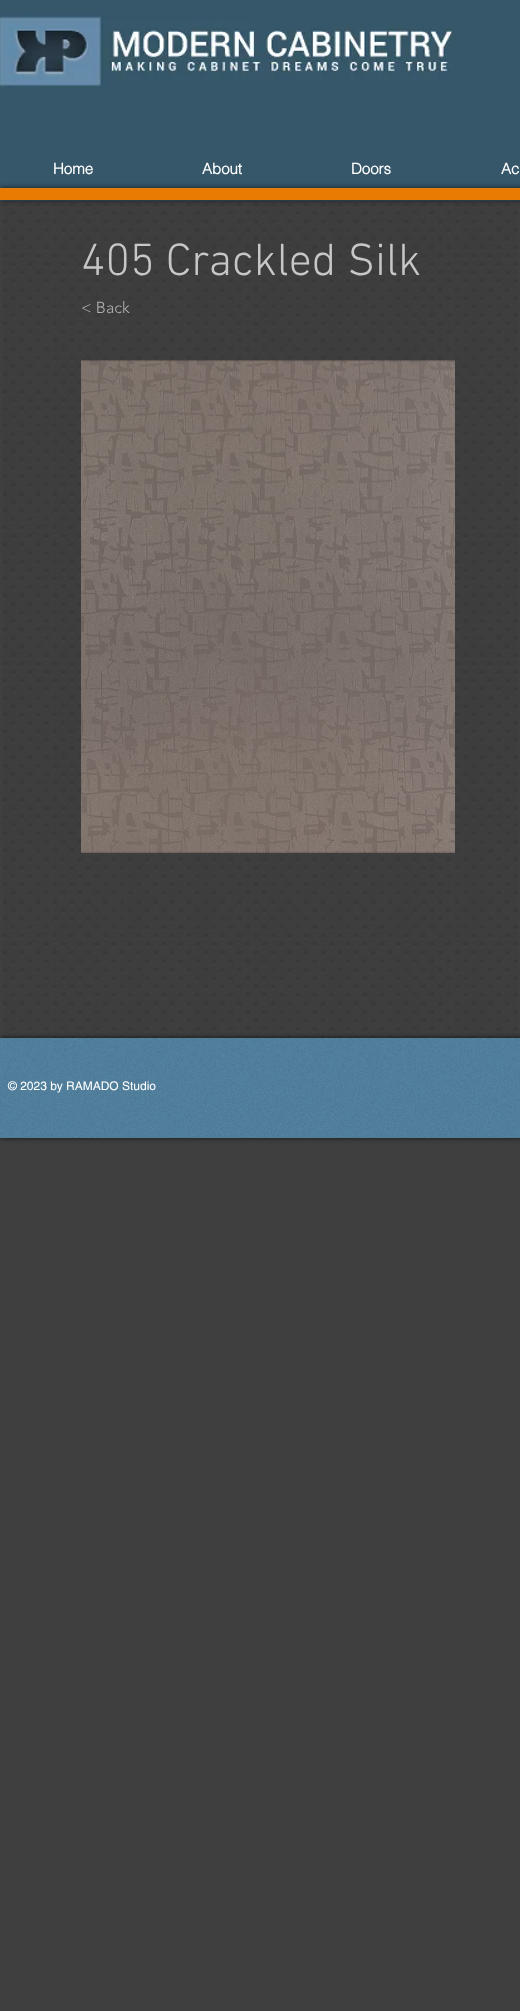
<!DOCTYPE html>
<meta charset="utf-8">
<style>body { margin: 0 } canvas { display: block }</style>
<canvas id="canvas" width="520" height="2011"></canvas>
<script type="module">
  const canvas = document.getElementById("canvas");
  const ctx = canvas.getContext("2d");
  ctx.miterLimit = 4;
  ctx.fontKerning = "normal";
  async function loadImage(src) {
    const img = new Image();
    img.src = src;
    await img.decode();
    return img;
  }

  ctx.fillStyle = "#3f3f3f";
  ctx.fillRect(0, 0, 520, 2011);
  ctx.fillStyle = "#365669";
  ctx.fillRect(0, 0, 520, 201);
  ctx.drawImage(await loadImage("img1.png"), 0, 14, 454, 75);
  ctx.font = "bold 15px helvetica";
  ctx.fillStyle = "#ffffff";
  ctx.fillText("Home", 53, 174);
  ctx.drawImage(await loadImage("img2.png"), 3, 203, 515, 835);
  ctx.fillStyle = "rgba(0, 0, 0, 0.7)";
  ctx.filter = "blur(2.5px)";
  ctx.beginPath();
  ctx.rect(0, 188, 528, 12);
  ctx.fill();
  ctx.filter = "none";
  ctx.fillStyle = "#e57f11";
  ctx.fillRect(0, 188, 520, 1);
  ctx.fillStyle = "#ffffff";
  ctx.fillText("About", 202, 174);
  ctx.fillText("Doors", 351, 174);
  ctx.fillText("Ac", 501, 174);
  ctx.fillStyle = "#e97b03";
  ctx.fillRect(0, 189, 520, 11);
  ctx.font = "300 46px 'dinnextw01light'";
  ctx.fillStyle = "#c7c7c7";
  ctx.fillText("405 Crackled Silk", 81, 275);
  ctx.font = "300 16px 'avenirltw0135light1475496'";
  ctx.fillStyle = "#b3b0b0";
  ctx.fillText("< Back", 81, 313);
  ctx.drawImage(await loadImage("img3.png"), 81, 360, 374, 493);
  ctx.fillStyle = "rgba(0, 0, 0, 0.7)";
  ctx.filter = "blur(2.5px)";
  ctx.beginPath();
  ctx.rect(0, 1038, 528, 100);
  ctx.fill();
  ctx.filter = "none";
  ctx.fillStyle = "#51819f";
  ctx.fillRect(0, 1038, 520, 100);
  ctx.drawImage(await loadImage("img4.png"), 0, 1038, 520, 100);
  ctx.font = "12px helvetica";
  ctx.fillStyle = "#ffffff";
  ctx.fillText("© 2023 by RAMADO Studio", 8, 1090);
</script>
